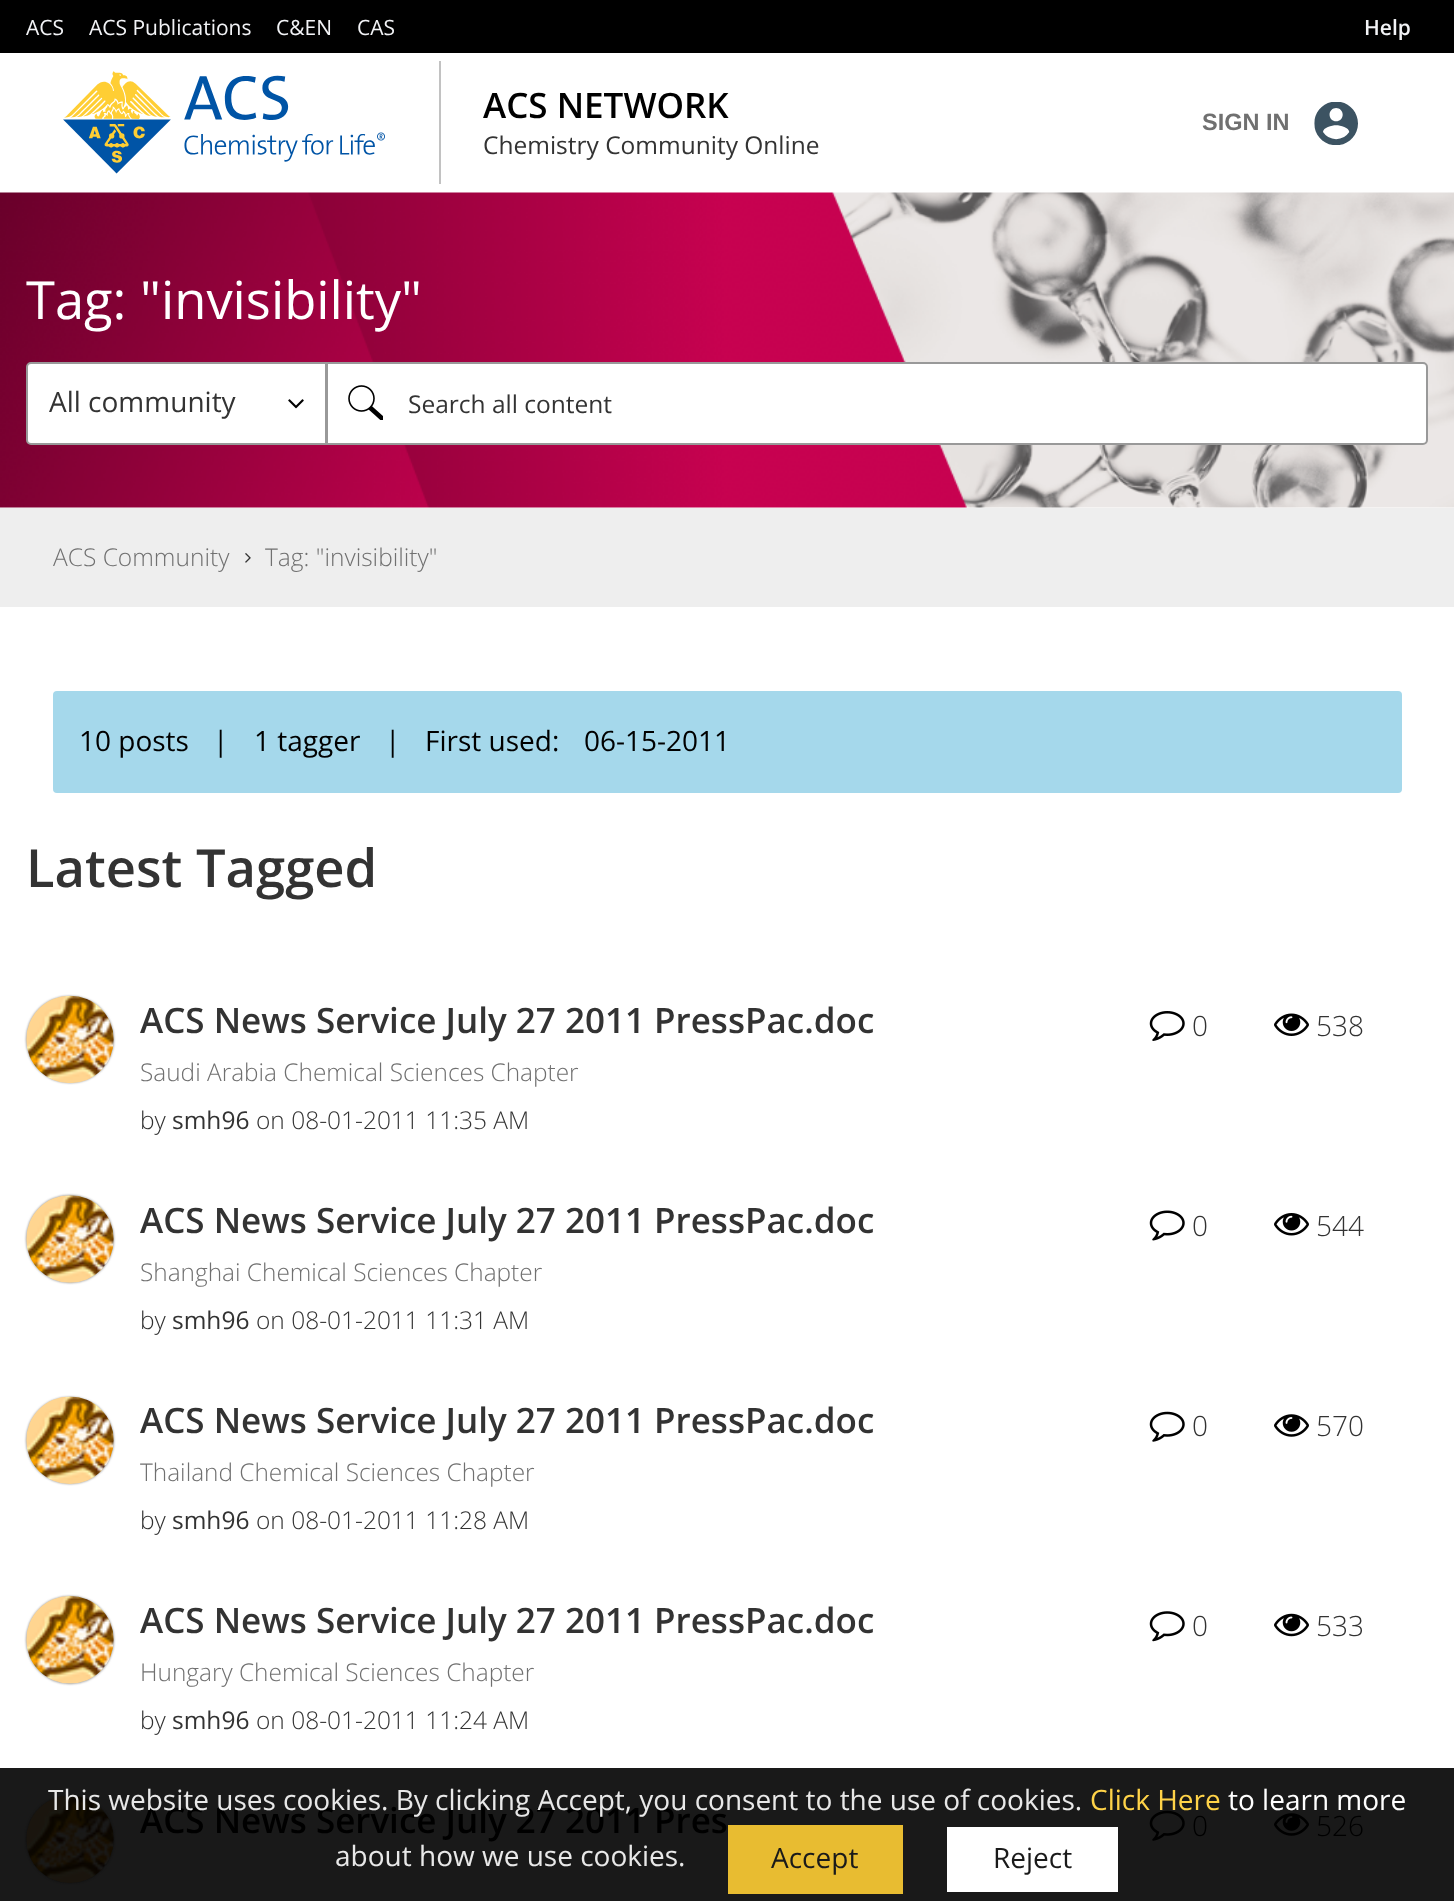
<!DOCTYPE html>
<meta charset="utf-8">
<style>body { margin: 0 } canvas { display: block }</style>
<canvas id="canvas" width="1454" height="1901"></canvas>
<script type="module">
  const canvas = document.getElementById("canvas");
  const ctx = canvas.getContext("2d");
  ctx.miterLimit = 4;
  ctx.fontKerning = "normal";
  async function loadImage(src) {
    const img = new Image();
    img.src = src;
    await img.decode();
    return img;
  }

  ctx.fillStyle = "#ffffff";
  ctx.fillRect(0, 0, 1454, 1901);
  ctx.fillStyle = "#191919";
  ctx.fillRect(0, 1768, 1454, 133);
  ctx.fillStyle = "#000000";
  ctx.fillRect(0, 0, 1454, 53);
  ctx.font = "21px Open Sans";
  ctx.fillStyle = "#f2f3f6";
  ctx.fillText("ACS", 26, 35);
  ctx.fillText("ACS Publications", 89, 35);
  ctx.fillText("C&EN", 276, 35);
  ctx.fillText("CAS", 357, 35);
  ctx.font = "600 21px Open Sans";
  ctx.fillText("Help", 1364, 35);
  ctx.fillStyle = "#c2c2c2";
  ctx.fillRect(439, 61, 2, 123);
  ctx.drawImage(await loadImage("img1.png"), 63, 71, 322, 103);
  ctx.font = "600 35px Open Sans";
  ctx.fillStyle = "#000000";
  ctx.fillText("ACS NETWORK", 483, 118);
  ctx.font = "24.5px Open Sans";
  ctx.fillStyle = "#333333";
  ctx.fillText("Chemistry Community Online", 483, 154);
  ctx.font = "bold 23.5px Liberation Sans";
  ctx.fillStyle = "#707070";
  ctx.fillText("SIGN IN", 1202, 130);
  ctx.drawImage(await loadImage("img2.png"), 1314, 102, 44, 43);
  ctx.drawImage(await loadImage("img3.png"), 0, 192, 1454, 316);
  ctx.font = "52.5px Open Sans";
  ctx.fillStyle = "#ffffff";
  ctx.fillText("Tag: \"invisibility\"", 26, 319);
  ctx.beginPath();
  ctx.roundRect(327, 363, 1100, 81, [0, 4, 4, 0]);
  ctx.fill();
  ctx.strokeStyle = "#999999";
  ctx.lineWidth = 2;
  ctx.stroke();
  ctx.beginPath();
  ctx.roundRect(27, 363, 299, 81, [4, 0, 0, 4]);
  ctx.fill();
  ctx.stroke();
  ctx.font = "28px Open Sans";
  ctx.fillStyle = "#333333";
  ctx.fillText("All community", 49, 412);
  ctx.drawImage(await loadImage("img4.png"), 288, 399, 16, 10);
  ctx.drawImage(await loadImage("img5.png"), 348, 385, 35, 35);
  ctx.font = "24.5px Open Sans";
  ctx.fillText("Search all content", 408, 413);
  ctx.fillStyle = "#eeeeee";
  ctx.fillRect(0, 508, 1454, 99);
  ctx.font = "300 24.5px Open Sans";
  ctx.fillStyle = "#707070";
  ctx.fillText("ACS Community", 53, 566);
  ctx.drawImage(await loadImage("img6.png"), 245, 553, 6, 10);
  ctx.fillText("Tag: \"invisibility\"", 265, 566);
  ctx.fillStyle = "#a5d8eb";
  ctx.beginPath();
  ctx.roundRect(53, 691, 1349, 102, 4);
  ctx.fill();
  ctx.font = "28px Open Sans";
  ctx.fillStyle = "#000000";
  ctx.fillText("10 posts", 79, 751);
  ctx.fillText("|", 213, 751);
  ctx.fillText("1 tagger", 254, 751);
  ctx.fillText("|", 385, 751);
  ctx.fillText("First used:", 425, 751);
  ctx.fillText("06-15-2011", 584, 751);
  ctx.font = "600 52.5px Open Sans";
  ctx.fillStyle = "#333333";
  ctx.fillText("Latest Tagged", 26, 887);
  ctx.fillStyle = "#999999";
  ctx.filter = "blur(1px)";
  ctx.beginPath();
  ctx.roundRect(26, 996, 88, 87, 43.5);
  ctx.fill();
  ctx.filter = "none";
  ctx.drawImage(await loadImage("img7.png"), 26, 995, 88, 88);
  ctx.font = "600 35px Open Sans";
  ctx.fillStyle = "#333333";
  ctx.fillText("ACS News Service July 27 2011 PressPac.doc", 140, 1033);
  ctx.font = "300 24.4px Open Sans";
  ctx.fillStyle = "#707070";
  ctx.fillText("Saudi Arabia Chemical Sciences Chapter", 140, 1081);
  ctx.font = "300 24.5px Open Sans";
  ctx.fillStyle = "#333333";
  ctx.fillText("by", 140, 1129);
  ctx.font = "24.5px Open Sans";
  ctx.fillText("smh96", 172, 1129);
  ctx.font = "300 24.5px Open Sans";
  ctx.fillText("on 08-01-2011 11:35 AM", 256, 1129);
  ctx.drawImage(await loadImage("img8.png"), 1149, 1011, 36, 30);
  ctx.font = "300 28px Open Sans";
  ctx.fillText("0", 1192, 1036);
  ctx.drawImage(await loadImage("img9.png"), 1274, 1013, 35, 23);
  ctx.fillText("538", 1316, 1036);
  ctx.fillStyle = "#999999";
  ctx.filter = "blur(1px)";
  ctx.beginPath();
  ctx.roundRect(26, 1195, 88, 88, 44);
  ctx.fill();
  ctx.filter = "none";
  ctx.drawImage(await loadImage("img10.png"), 26, 1195, 88, 88);
  ctx.font = "600 35px Open Sans";
  ctx.fillStyle = "#333333";
  ctx.fillText("ACS News Service July 27 2011 PressPac.doc", 140, 1233);
  ctx.font = "300 24.4px Open Sans";
  ctx.fillStyle = "#707070";
  ctx.fillText("Shanghai Chemical Sciences Chapter", 140, 1281);
  ctx.font = "300 24.5px Open Sans";
  ctx.fillStyle = "#333333";
  ctx.fillText("by", 140, 1329);
  ctx.font = "24.5px Open Sans";
  ctx.fillText("smh96", 172, 1329);
  ctx.font = "300 24.5px Open Sans";
  ctx.fillText("on 08-01-2011 11:31 AM", 256, 1329);
  ctx.drawImage(await loadImage("img11.png"), 1149, 1210, 36, 31);
  ctx.font = "300 28px Open Sans";
  ctx.fillText("0", 1192, 1236);
  ctx.drawImage(await loadImage("img12.png"), 1274, 1213, 35, 23);
  ctx.fillText("544", 1316, 1236);
  ctx.fillStyle = "#999999";
  ctx.filter = "blur(1px)";
  ctx.beginPath();
  ctx.roundRect(26, 1397, 88, 87, 43.5);
  ctx.fill();
  ctx.filter = "none";
  ctx.drawImage(await loadImage("img13.png"), 26, 1396, 88, 88);
  ctx.font = "600 35px Open Sans";
  ctx.fillStyle = "#333333";
  ctx.fillText("ACS News Service July 27 2011 PressPac.doc", 140, 1433);
  ctx.font = "300 24.4px Open Sans";
  ctx.fillStyle = "#707070";
  ctx.fillText("Thailand Chemical Sciences Chapter", 140, 1481);
  ctx.font = "300 24.5px Open Sans";
  ctx.fillStyle = "#333333";
  ctx.fillText("by", 140, 1529);
  ctx.font = "24.5px Open Sans";
  ctx.fillText("smh96", 172, 1529);
  ctx.font = "300 24.5px Open Sans";
  ctx.fillText("on 08-01-2011 11:28 AM", 256, 1529);
  ctx.drawImage(await loadImage("img14.png"), 1149, 1411, 36, 31);
  ctx.font = "300 28px Open Sans";
  ctx.fillText("0", 1192, 1436);
  ctx.drawImage(await loadImage("img15.png"), 1274, 1414, 35, 23);
  ctx.fillText("570", 1316, 1436);
  ctx.fillStyle = "#999999";
  ctx.filter = "blur(1px)";
  ctx.beginPath();
  ctx.roundRect(26, 1596, 88, 88, 44);
  ctx.fill();
  ctx.filter = "none";
  ctx.drawImage(await loadImage("img16.png"), 26, 1596, 88, 88);
  ctx.font = "600 35px Open Sans";
  ctx.fillStyle = "#333333";
  ctx.fillText("ACS News Service July 27 2011 PressPac.doc", 140, 1633);
  ctx.font = "300 24.4px Open Sans";
  ctx.fillStyle = "#707070";
  ctx.fillText("Hungary Chemical Sciences Chapter", 140, 1681);
  ctx.font = "300 24.5px Open Sans";
  ctx.fillStyle = "#333333";
  ctx.fillText("by", 140, 1729);
  ctx.font = "24.5px Open Sans";
  ctx.fillText("smh96", 172, 1729);
  ctx.font = "300 24.5px Open Sans";
  ctx.fillText("on 08-01-2011 11:24 AM", 256, 1729);
  ctx.drawImage(await loadImage("img17.png"), 1149, 1611, 36, 31);
  ctx.font = "300 28px Open Sans";
  ctx.fillText("0", 1192, 1636);
  ctx.drawImage(await loadImage("img18.png"), 1274, 1613, 35, 24);
  ctx.fillText("533", 1316, 1636);
  ctx.fillStyle = "#0f0f0f";
  ctx.filter = "blur(1px)";
  ctx.beginPath();
  ctx.roundRect(26, 1796, 88, 87, 43.5);
  ctx.fill();
  ctx.filter = "none";
  ctx.drawImage(await loadImage("img19.png"), 26, 1795, 88, 88);
  ctx.font = "600 35px Open Sans";
  ctx.fillStyle = "#000000";
  ctx.fillText("ACS News Service July 27 2011 Pres", 140, 1833);
  ctx.drawImage(await loadImage("img20.png"), 1149, 1810, 36, 31);
  ctx.font = "300 28px Open Sans";
  ctx.fillText("0", 1192, 1836);
  ctx.drawImage(await loadImage("img21.png"), 1274, 1813, 35, 23);
  ctx.fillText("526", 1316, 1836);
  ctx.font = "28px Open Sans";
  ctx.fillStyle = "#e8e8e8";
  ctx.fillText("This website uses cookies. By clicking Accept, you consent to the use of cookies.", 48, 1810);
  ctx.fillStyle = "#ffd348";
  ctx.fillText("Click Here", 1090, 1810);
  ctx.fillStyle = "#ffffff";
  ctx.fillText("to learn more", 1228, 1810);
  ctx.fillStyle = "#e8e8e8";
  ctx.fillText("about how we use cookies.", 335, 1866);
  ctx.fillStyle = "rgba(255, 206, 52, 0.9)";
  ctx.fillRect(728, 1825, 175, 69);
  ctx.fillStyle = "#1a1a1a";
  ctx.fillText("Accept", 771, 1868);
  ctx.fillStyle = "#ffffff";
  ctx.fillRect(947, 1827, 171, 65);
  ctx.fillStyle = "#1a1a1a";
  ctx.fillText("Reject", 993, 1868);
</script>
